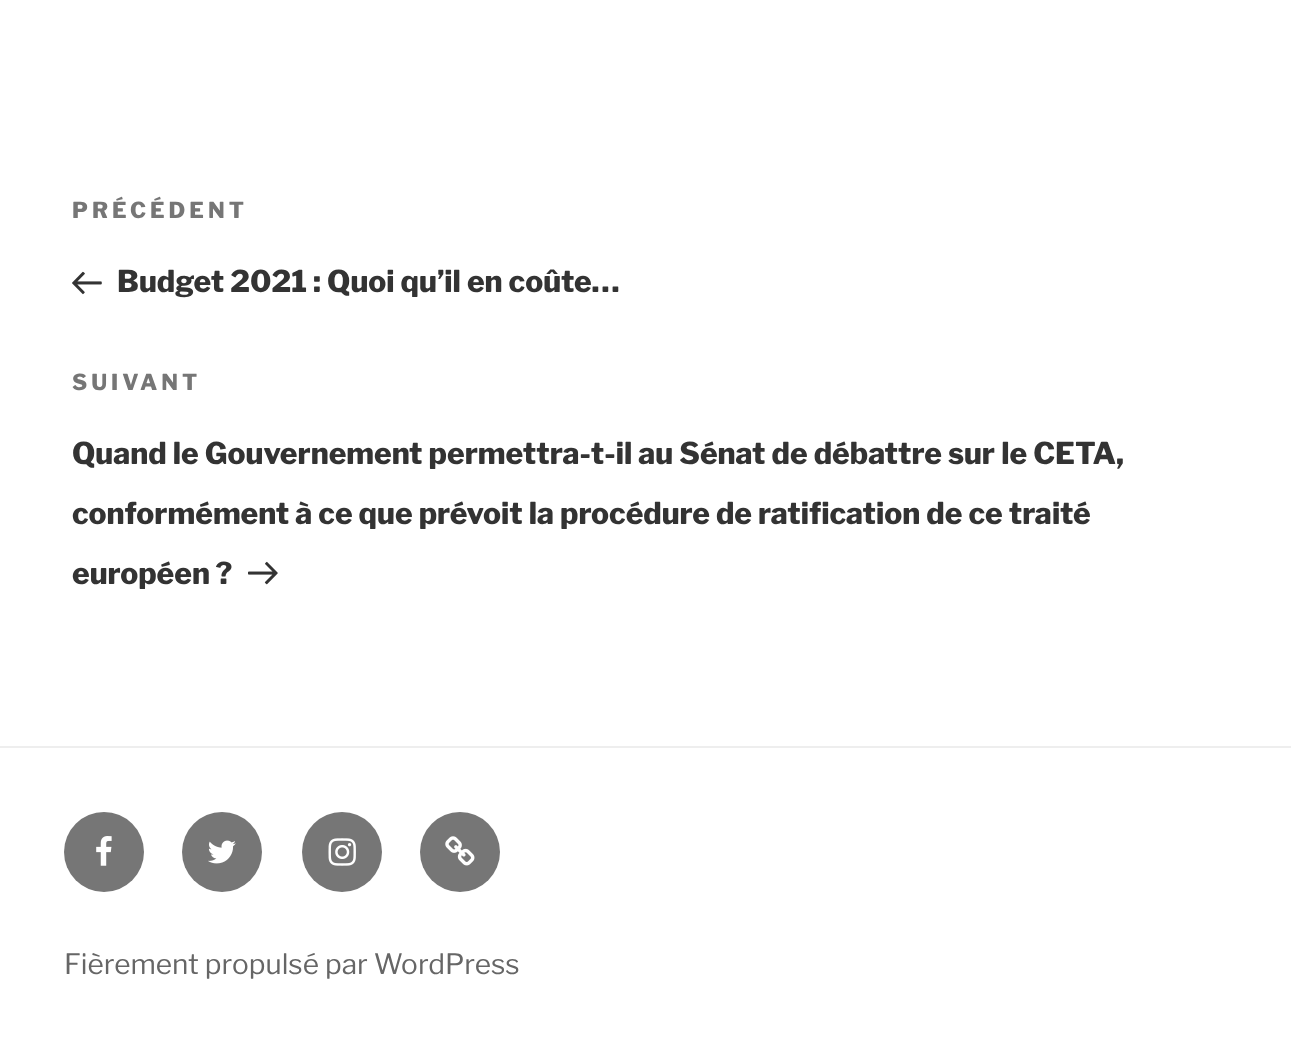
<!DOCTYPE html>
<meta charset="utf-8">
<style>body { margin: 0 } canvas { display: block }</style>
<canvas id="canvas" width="1291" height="1061"></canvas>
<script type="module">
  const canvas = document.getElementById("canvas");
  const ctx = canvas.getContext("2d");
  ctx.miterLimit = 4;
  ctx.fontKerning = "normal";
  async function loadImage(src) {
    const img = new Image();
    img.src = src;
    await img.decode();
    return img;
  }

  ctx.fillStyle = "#ffffff";
  ctx.fillRect(0, 0, 1291, 1061);
  ctx.letterSpacing = "4px";
  ctx.font = "800 22px Libre Franklin";
  ctx.fillStyle = "#767676";
  ctx.fillText("PRÉCÉDENT", 72, 218);
  ctx.drawImage(await loadImage("img1.png"), 72, 271, 30, 24);
  ctx.letterSpacing = "0px";
  ctx.font = "800 30px Libre Franklin";
  ctx.fillStyle = "#333333";
  ctx.fillText("Budget 2021 : Quoi qu’il en coûte…", 117, 292);
  ctx.letterSpacing = "4px";
  ctx.font = "800 22px Libre Franklin";
  ctx.fillStyle = "#767676";
  ctx.fillText("SUIVANT", 72, 390);
  ctx.letterSpacing = "0px";
  ctx.font = "800 30px Libre Franklin";
  ctx.fillStyle = "#333333";
  ctx.fillText("Quand le Gouvernement permettra-t-il au Sénat de débattre sur le CETA,", 72, 464);
  ctx.fillText("conformément à ce que prévoit la procédure de ratification de ce traité", 72, 524);
  ctx.fillText("européen ?", 72, 584);
  ctx.drawImage(await loadImage("img2.png"), 248, 561, 30, 24);
  ctx.fillStyle = "#eeeeee";
  ctx.fillRect(0, 746, 1291, 2);
  ctx.fillStyle = "#767676";
  ctx.beginPath();
  ctx.arc(104, 852, 40, 0, Math.PI * 2);
  ctx.fill();
  ctx.drawImage(await loadImage("img3.png"), 96, 836, 16, 30);
  ctx.beginPath();
  ctx.arc(222, 852, 40, 0, Math.PI * 2);
  ctx.fill();
  ctx.drawImage(await loadImage("img4.png"), 208, 840, 28, 24);
  ctx.beginPath();
  ctx.arc(342, 852, 40, 0, Math.PI * 2);
  ctx.fill();
  ctx.drawImage(await loadImage("img5.png"), 328, 838, 28, 28);
  ctx.beginPath();
  ctx.arc(460, 852, 40, 0, Math.PI * 2);
  ctx.fill();
  ctx.drawImage(await loadImage("img6.png"), 445, 836, 30, 30);
  ctx.font = "28px Libre Franklin";
  ctx.fillStyle = "#666666";
  ctx.fillText("Fièrement propulsé par WordPress", 64, 974);
</script>
